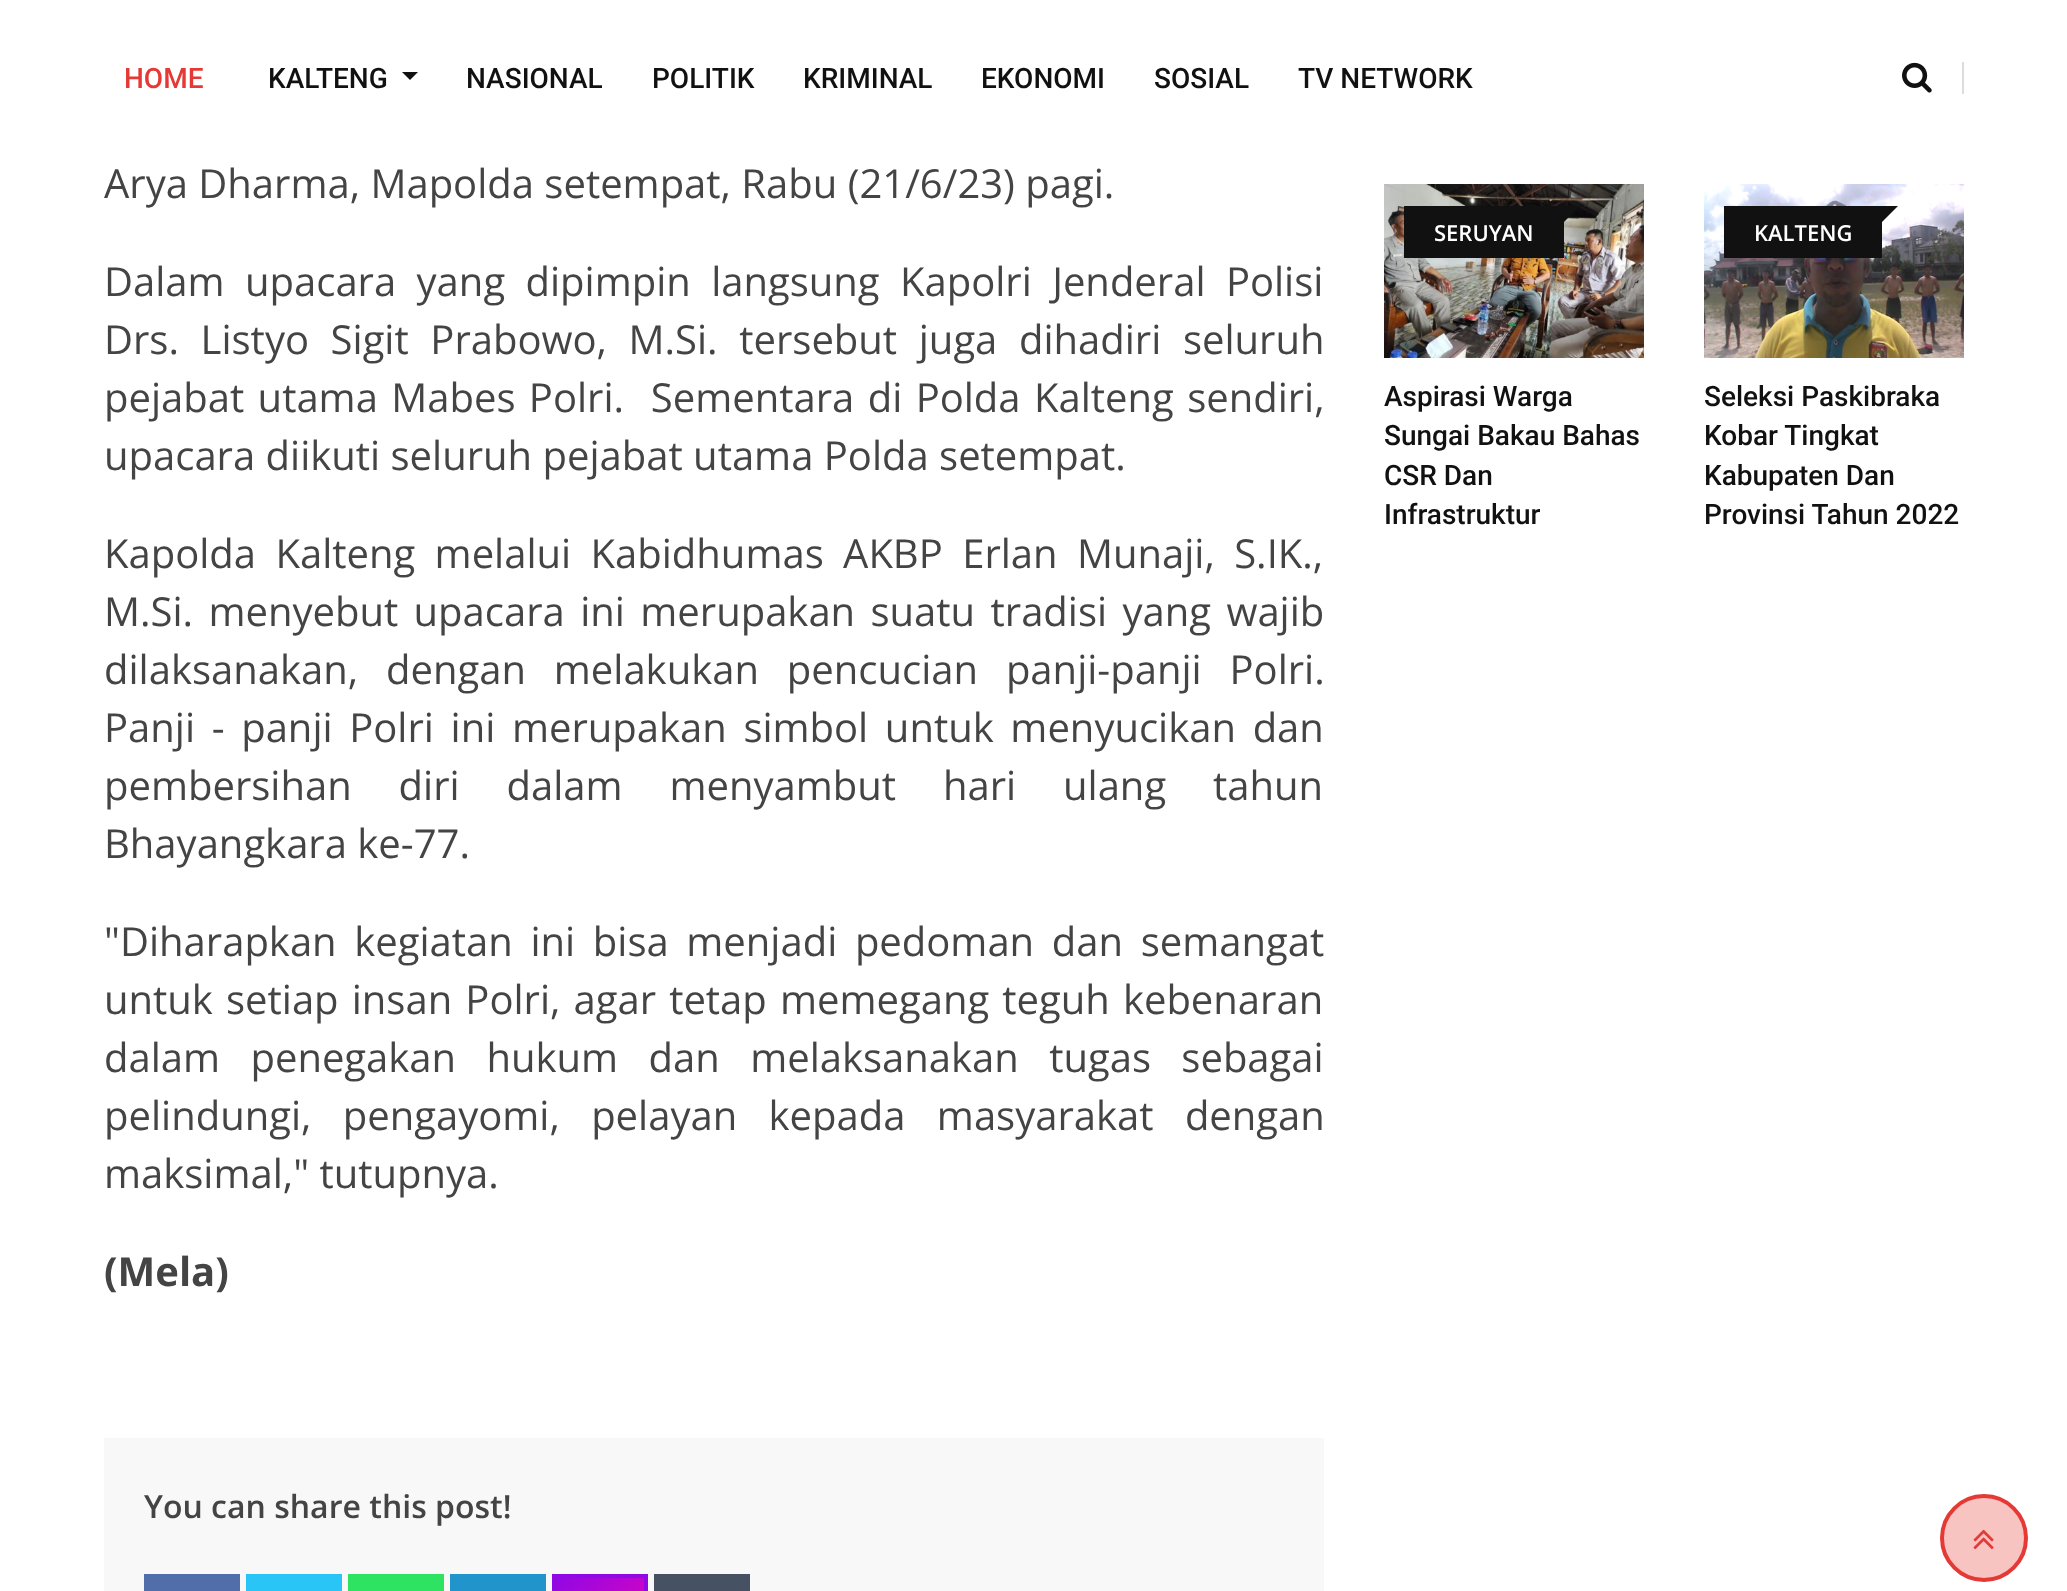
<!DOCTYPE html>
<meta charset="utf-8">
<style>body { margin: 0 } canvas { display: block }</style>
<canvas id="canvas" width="2067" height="1591"></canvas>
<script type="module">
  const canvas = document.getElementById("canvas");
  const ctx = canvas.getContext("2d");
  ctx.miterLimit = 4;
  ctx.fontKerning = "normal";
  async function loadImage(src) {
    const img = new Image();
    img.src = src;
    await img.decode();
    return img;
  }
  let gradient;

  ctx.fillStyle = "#ffffff";
  ctx.fillRect(0, 0, 2067, 1591);
  ctx.font = "500 28px Roboto";
  ctx.fillStyle = "#e53935";
  ctx.fillText("HOME", 124, 88);
  ctx.fillStyle = "#111111";
  ctx.fillText("KALTENG", 268, 88);
  ctx.beginPath();
  ctx.moveTo(402, 72);
  ctx.lineTo(418, 72);
  ctx.lineTo(410, 80);
  ctx.closePath();
  ctx.fill();
  ctx.fillText("NASIONAL", 466, 88);
  ctx.fillText("POLITIK", 652, 88);
  ctx.fillText("KRIMINAL", 803, 88);
  ctx.fillText("EKONOMI", 981, 88);
  ctx.fillText("SOSIAL", 1154, 88);
  ctx.fillText("TV NETWORK", 1298, 88);
  ctx.fillStyle = "#dcdcdc";
  ctx.fillRect(1962, 62, 2, 32);
  ctx.drawImage(await loadImage("img1.png"), 1902, 62, 30, 31);
  ctx.font = "40px Open Sans";
  ctx.fillStyle = "#444444";
  ctx.fillText("Arya Dharma, Mapolda setempat, Rabu (21/6/23) pagi.", 104, 198);
  ctx.wordSpacing = "10px";
  ctx.fillText("Dalam upacara yang dipimpin langsung Kapolri Jenderal Polisi", 104, 296);
  ctx.wordSpacing = "11.25px";
  ctx.fillText("Drs. Listyo Sigit Prabowo, M.Si. tersebut juga dihadiri seluruh", 104, 354);
  ctx.wordSpacing = "3px";
  ctx.fillText("pejabat utama Mabes Polri.  Sementara di Polda Kalteng sendiri,", 104, 412);
  ctx.wordSpacing = "0px";
  ctx.fillText("upacara diikuti seluruh pejabat utama Polda setempat.", 104, 470);
  ctx.wordSpacing = "9px";
  ctx.fillText("Kapolda Kalteng melalui Kabidhumas AKBP Erlan Munaji, S.IK.,", 104, 568);
  ctx.wordSpacing = "5px";
  ctx.fillText("M.Si. menyebut upacara ini merupakan suatu tradisi yang wajib", 104, 626);
  ctx.wordSpacing = "17.5px";
  ctx.fillText("dilaksanakan, dengan melakukan pencucian panji-panji Polri.", 104, 684);
  ctx.wordSpacing = "6.25px";
  ctx.fillText("Panji - panji Polri ini merupakan simbol untuk menyucikan dan", 104, 742);
  ctx.wordSpacing = "36.5px";
  ctx.fillText("pembersihan diri dalam menyambut hari ulang tahun", 104, 800);
  ctx.wordSpacing = "0px";
  ctx.fillText("Bhayangkara ke-77.", 104, 858);
  ctx.wordSpacing = "7.25px";
  ctx.fillText("\"Diharapkan kegiatan ini bisa menjadi pedoman dan semangat", 104, 956);
  ctx.wordSpacing = "2.75px";
  ctx.fillText("untuk setiap insan Polri, agar tetap memegang teguh kebenaran", 104, 1014);
  ctx.wordSpacing = "20px";
  ctx.fillText("dalam penegakan hukum dan melaksanakan tugas sebagai", 104, 1072);
  ctx.wordSpacing = "21px";
  ctx.fillText("pelindungi, pengayomi, pelayan kepada masyarakat dengan", 104, 1130);
  ctx.wordSpacing = "0px";
  ctx.fillText("maksimal,\" tutupnya.", 104, 1188);
  ctx.font = "bold 40px Open Sans";
  ctx.fillText("(Mela)", 104, 1286);
  ctx.fillStyle = "#f8f8f8";
  ctx.fillRect(104, 1438, 1220, 153);
  ctx.font = "600 32px Open Sans";
  ctx.fillStyle = "#444444";
  ctx.fillText("You can share this post!", 144, 1518);
  ctx.fillStyle = "#516eab";
  ctx.fillRect(144, 1574, 96, 17);
  ctx.fillStyle = "#29c5f6";
  ctx.fillRect(246, 1574, 96, 17);
  ctx.fillStyle = "#2de361";
  ctx.fillRect(348, 1574, 96, 17);
  ctx.fillStyle = "#2194cc";
  ctx.fillRect(450, 1574, 96, 17);
  gradient = ctx.createLinearGradient(560, 1574, 640, 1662);
  gradient.addColorStop(0, "#9008e4");
  gradient.addColorStop(1, "#f002b6");
  ctx.fillStyle = gradient;
  ctx.fillRect(556, 1578, 88, 13);
  ctx.strokeStyle = "#9008e4";
  ctx.lineWidth = 4;
  ctx.strokeRect(554, 1576, 92, 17);
  ctx.fillStyle = "#465163";
  ctx.fillRect(654, 1574, 96, 17);
  ctx.drawImage(await loadImage("img2.png"), 1384, 184, 260, 174);
  ctx.fillStyle = "#111111";
  ctx.fillRect(1404, 206, 160, 52);
  ctx.beginPath();
  ctx.moveTo(1564, 206);
  ctx.lineTo(1580, 206);
  ctx.lineTo(1564, 222);
  ctx.closePath();
  ctx.fill();
  ctx.font = "600 22px Open Sans";
  ctx.fillStyle = "#ffffff";
  ctx.fillText("SERUYAN", 1434, 241);
  ctx.font = "500 28px Roboto";
  ctx.fillStyle = "#111111";
  ctx.fillText("Aspirasi Warga", 1384, 406);
  ctx.fillText("Sungai Bakau Bahas", 1384, 445);
  ctx.fillText("CSR Dan", 1384, 485);
  ctx.fillText("Infrastruktur", 1384, 524);
  ctx.drawImage(await loadImage("img3.png"), 1704, 184, 260, 174);
  ctx.fillRect(1724, 206, 158, 52);
  ctx.beginPath();
  ctx.moveTo(1882, 206);
  ctx.lineTo(1898, 206);
  ctx.lineTo(1882, 222);
  ctx.closePath();
  ctx.fill();
  ctx.font = "600 22px Open Sans";
  ctx.fillStyle = "#ffffff";
  ctx.fillText("KALTENG", 1754, 241);
  ctx.font = "500 28px Roboto";
  ctx.fillStyle = "#111111";
  ctx.fillText("Seleksi Paskibraka", 1704, 406);
  ctx.fillText("Kobar Tingkat", 1704, 445);
  ctx.fillText("Kabupaten Dan", 1704, 485);
  ctx.fillText("Provinsi Tahun 2022", 1704, 524);
  ctx.fillStyle = "#f7c4c2";
  ctx.beginPath();
  ctx.arc(1984, 1538, 42, 0, Math.PI * 2);
  ctx.fill();
  ctx.strokeStyle = "#e53935";
  ctx.stroke();
  ctx.drawImage(await loadImage("img4.png"), 1973, 1529, 21, 21);
</script>
